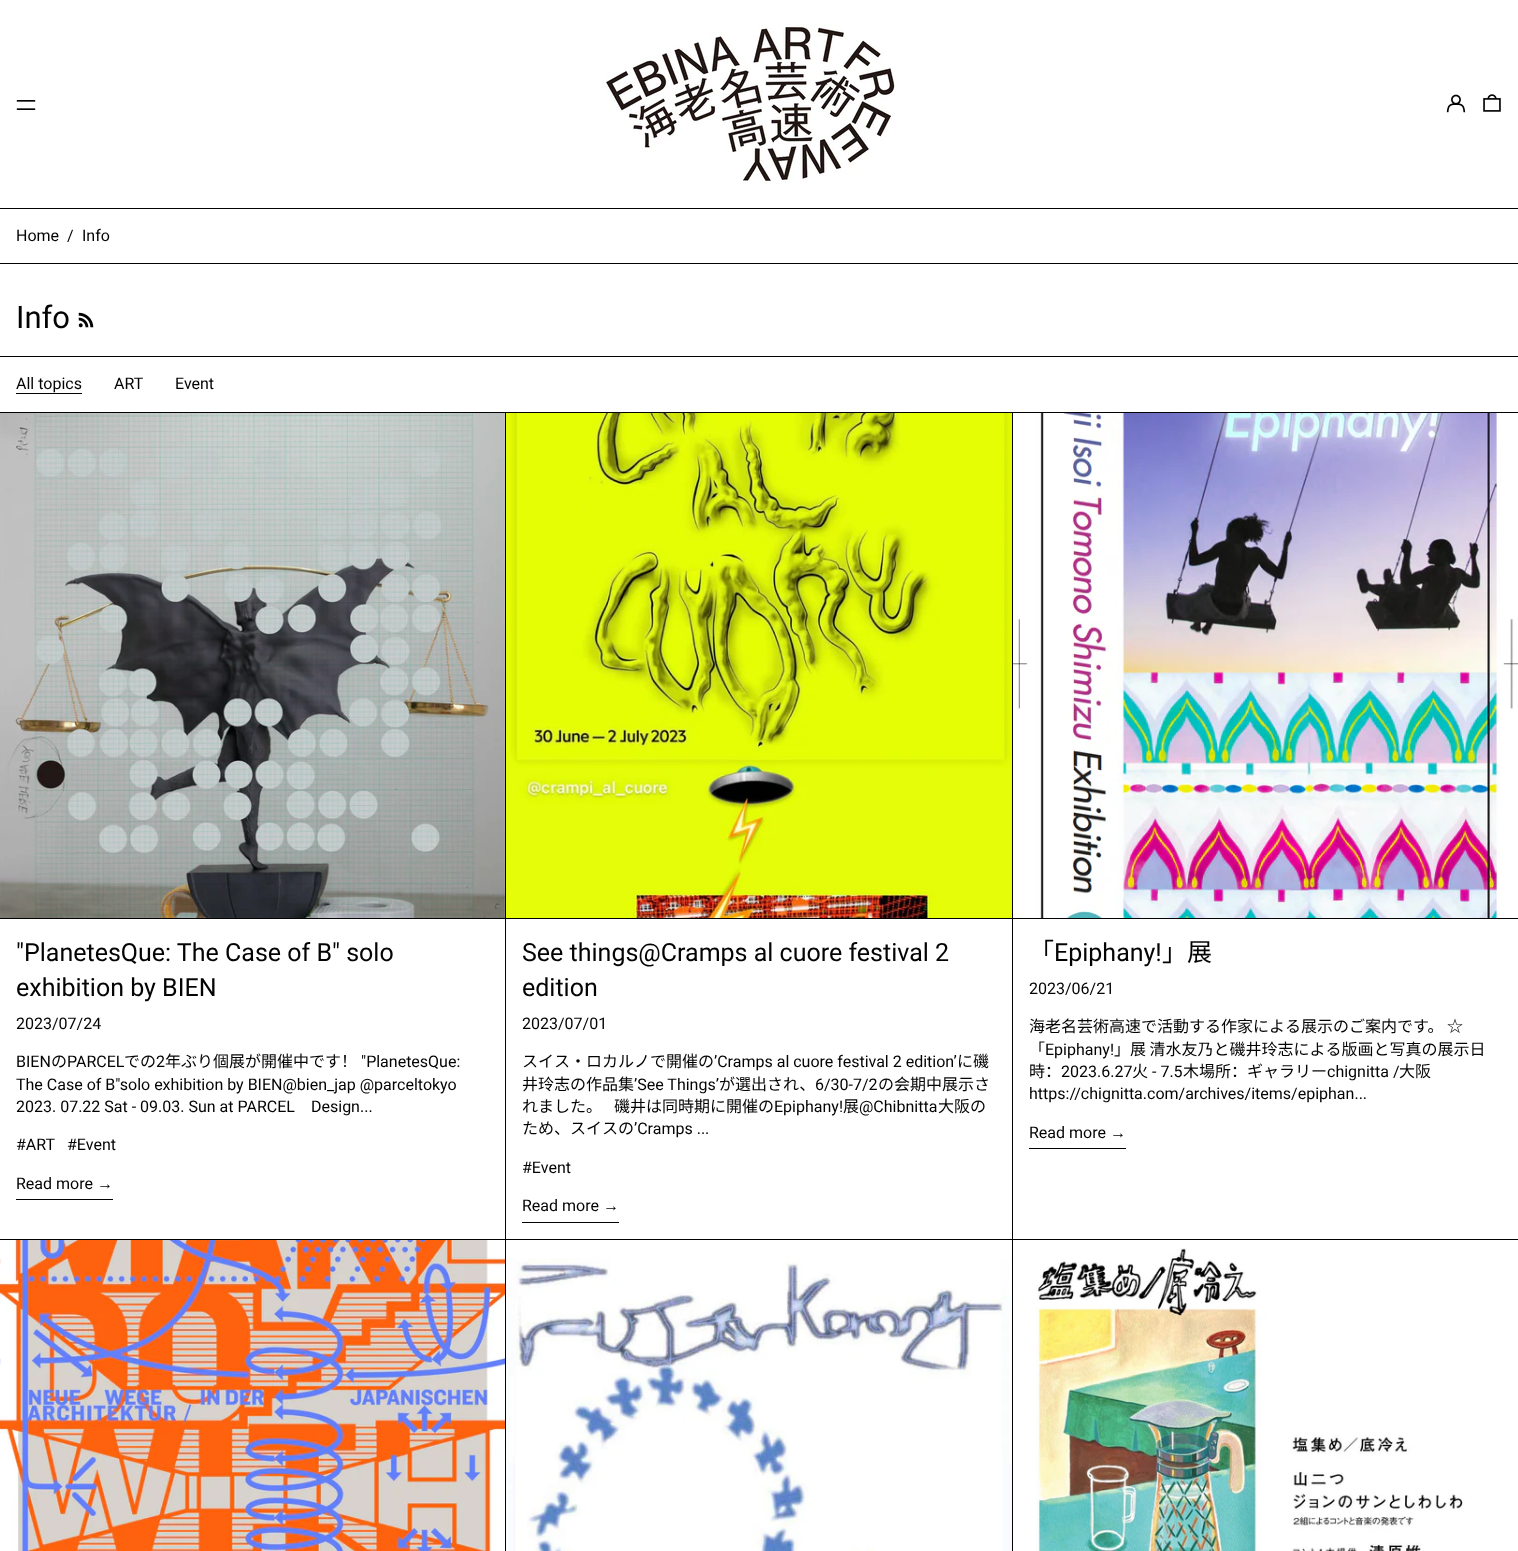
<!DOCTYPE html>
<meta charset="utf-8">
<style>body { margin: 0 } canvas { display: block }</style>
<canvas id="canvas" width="1518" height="1551"></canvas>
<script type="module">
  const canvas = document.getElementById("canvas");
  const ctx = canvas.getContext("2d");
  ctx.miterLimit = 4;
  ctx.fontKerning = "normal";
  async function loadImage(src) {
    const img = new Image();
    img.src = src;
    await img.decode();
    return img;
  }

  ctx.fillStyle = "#ffffff";
  ctx.fillRect(0, 0, 1518, 1551);
  ctx.fillStyle = "#030303";
  ctx.fillRect(0, 208, 1518, 1);
  ctx.drawImage(await loadImage("img1.png"), 16, 100, 20, 10);
  ctx.drawImage(await loadImage("img2.png"), 606, 24, 289, 160);
  ctx.drawImage(await loadImage("img3.png"), 1446, 94, 20, 19);
  ctx.drawImage(await loadImage("img4.png"), 1483, 94, 18, 18);
  ctx.font = "16px Roboto";
  ctx.fillText("Home", 16, 241);
  ctx.fillText("/", 67, 241);
  ctx.fillText("Info", 82, 241);
  ctx.fillRect(0, 263, 1518, 1);
  ctx.fillRect(0, 356, 1518, 1);
  ctx.font = "31px Roboto";
  ctx.fillText("Info", 16, 328);
  ctx.drawImage(await loadImage("img5.png"), 78, 312, 16, 16);
  ctx.font = "16px Roboto";
  ctx.fillText("All topics", 16, 389);
  ctx.fillRect(16, 393, 66, 1);
  ctx.fillText("ART", 114, 389);
  ctx.fillText("Event", 175, 389);
  ctx.fillRect(0, 412, 1518, 1139);
  ctx.fillStyle = "#ffffff";
  ctx.fillRect(0, 919, 505, 320);
  ctx.drawImage(await loadImage("img6.png"), 0, 413, 505, 505);
  ctx.font = "25px Roboto";
  ctx.fillStyle = "#030303";
  ctx.fillText("\"PlanetesQue: The Case of B\" solo", 16, 961);
  ctx.fillText("exhibition by BIEN", 16, 996);
  ctx.font = "16px Roboto";
  ctx.fillText("2023/07/24", 16, 1029);
  ctx.fillText("BIEN", 16, 1067);
  ctx.font = "16px Noto Sans CJK SC";
  ctx.fillText("の", 51, 1067);
  ctx.font = "16px Roboto";
  ctx.fillText("PARCEL", 67, 1067);
  ctx.font = "16px Noto Sans CJK SC";
  ctx.fillText("での", 124, 1067);
  ctx.font = "16px Roboto";
  ctx.fillText("2", 156, 1067);
  ctx.font = "16px Noto Sans CJK SC";
  ctx.fillText("年ぶり個展が開催中です！", 165, 1067);
  ctx.font = "16px Roboto";
  ctx.fillText("\"PlanetesQue:", 361, 1067);
  ctx.fillText("The Case of B\"solo exhibition by BIEN@bien_jap @parceltokyo", 16, 1090);
  ctx.fillText("2023. 07.22 Sat - 09.03. Sun at PARCEL", 16, 1112);
  ctx.fillText("Design...", 311, 1112);
  ctx.fillText("#ART", 16, 1150);
  ctx.fillText("#Event", 67, 1150);
  ctx.fillRect(16, 1199, 97, 1);
  ctx.fillText("Read more", 16, 1189);
  ctx.font = "16px Liberation Sans";
  ctx.fillText("→", 97, 1189);
  ctx.fillStyle = "#ffffff";
  ctx.fillRect(506, 919, 506, 320);
  ctx.drawImage(await loadImage("img7.png"), 506, 413, 506, 505);
  ctx.font = "25px Roboto";
  ctx.fillStyle = "#030303";
  ctx.fillText("See things@Cramps al cuore festival 2", 522, 961);
  ctx.fillText("edition", 522, 996);
  ctx.font = "16px Roboto";
  ctx.fillText("2023/07/01", 522, 1029);
  ctx.font = "16px Noto Sans CJK SC";
  ctx.fillText("スイス・ロカルノで開催の", 522, 1067);
  ctx.font = "16px Roboto";
  ctx.fillText("’Cramps al cuore festival 2 edition’", 714, 1067);
  ctx.font = "16px Noto Sans CJK SC";
  ctx.fillText("に磯", 957, 1067);
  ctx.fillText("井玲志の作品集", 522, 1090);
  ctx.font = "16px Roboto";
  ctx.fillText("’See Things’", 634, 1090);
  ctx.font = "16px Noto Sans CJK SC";
  ctx.fillText("が選出され、", 719, 1090);
  ctx.font = "16px Roboto";
  ctx.fillText("6/30-7/2", 815, 1090);
  ctx.font = "16px Noto Sans CJK SC";
  ctx.fillText("の会期中展示さ", 878, 1090);
  ctx.fillText("れました。", 522, 1112);
  ctx.fillText("磯井は同時期に開催の", 614, 1112);
  ctx.font = "16px Roboto";
  ctx.fillText("Epiphany!", 774, 1112);
  ctx.font = "16px Noto Sans CJK SC";
  ctx.fillText("展", 843, 1112);
  ctx.font = "16px Roboto";
  ctx.fillText("@Chibnitta", 859, 1112);
  ctx.font = "16px Noto Sans CJK SC";
  ctx.fillText("大阪の", 938, 1112);
  ctx.fillText("ため、スイスの", 522, 1134);
  ctx.font = "16px Roboto";
  ctx.fillText("’Cramps ...", 634, 1134);
  ctx.fillText("#Event", 522, 1173);
  ctx.fillRect(522, 1222, 97, 1);
  ctx.fillText("Read more", 522, 1211);
  ctx.font = "16px Liberation Sans";
  ctx.fillText("→", 603, 1211);
  ctx.fillStyle = "#ffffff";
  ctx.fillRect(1013, 919, 505, 320);
  ctx.drawImage(await loadImage("img8.png"), 1013, 413, 505, 505);
  ctx.font = "25px Noto Sans CJK SC";
  ctx.fillStyle = "#030303";
  ctx.fillText("「", 1029, 961);
  ctx.font = "25px Roboto";
  ctx.fillText("Epiphany!", 1054, 961);
  ctx.font = "25px Noto Sans CJK SC";
  ctx.fillText("」展", 1162, 961);
  ctx.font = "16px Roboto";
  ctx.fillText("2023/06/21", 1029, 994);
  ctx.font = "16px Noto Sans CJK SC";
  ctx.fillText("海老名芸術高速で活動する作家による展示のご案内です。 ☆", 1029, 1032);
  ctx.fillText("「", 1029, 1055);
  ctx.font = "16px Roboto";
  ctx.fillText("Epiphany!", 1045, 1055);
  ctx.font = "16px Noto Sans CJK SC";
  ctx.fillText("」展 清水友乃と磯井玲志による版画と写真の展示日", 1114, 1055);
  ctx.fillText("時：", 1029, 1077);
  ctx.font = "16px Roboto";
  ctx.fillText("2023.6.27", 1061, 1077);
  ctx.font = "16px Noto Sans CJK SC";
  ctx.fillText("火", 1132, 1077);
  ctx.font = "16px Roboto";
  ctx.fillText("- 7.5", 1152, 1077);
  ctx.font = "16px Noto Sans CJK SC";
  ctx.fillText("木場所：ギャラリー", 1183, 1077);
  ctx.font = "16px Roboto";
  ctx.fillText("chignitta /", 1327, 1077);
  ctx.font = "16px Noto Sans CJK SC";
  ctx.fillText("大阪", 1399, 1077);
  ctx.font = "16px Roboto";
  ctx.fillText("https://chignitta.com/archives/items/epiphan...", 1029, 1099);
  ctx.fillRect(1029, 1148, 97, 1);
  ctx.fillText("Read more", 1029, 1138);
  ctx.font = "16px Liberation Sans";
  ctx.fillText("→", 1110, 1138);
  ctx.drawImage(await loadImage("img9.png"), 0, 1240, 505, 311);
  ctx.fillStyle = "#ffffff";
  ctx.fillRect(506, 1240, 506, 18);
  ctx.drawImage(await loadImage("img10.png"), 506, 1258, 506, 293);
  ctx.fillRect(1013, 1240, 505, 311);
  ctx.drawImage(await loadImage("img11.png"), 1036, 1248, 429, 303);
</script>
